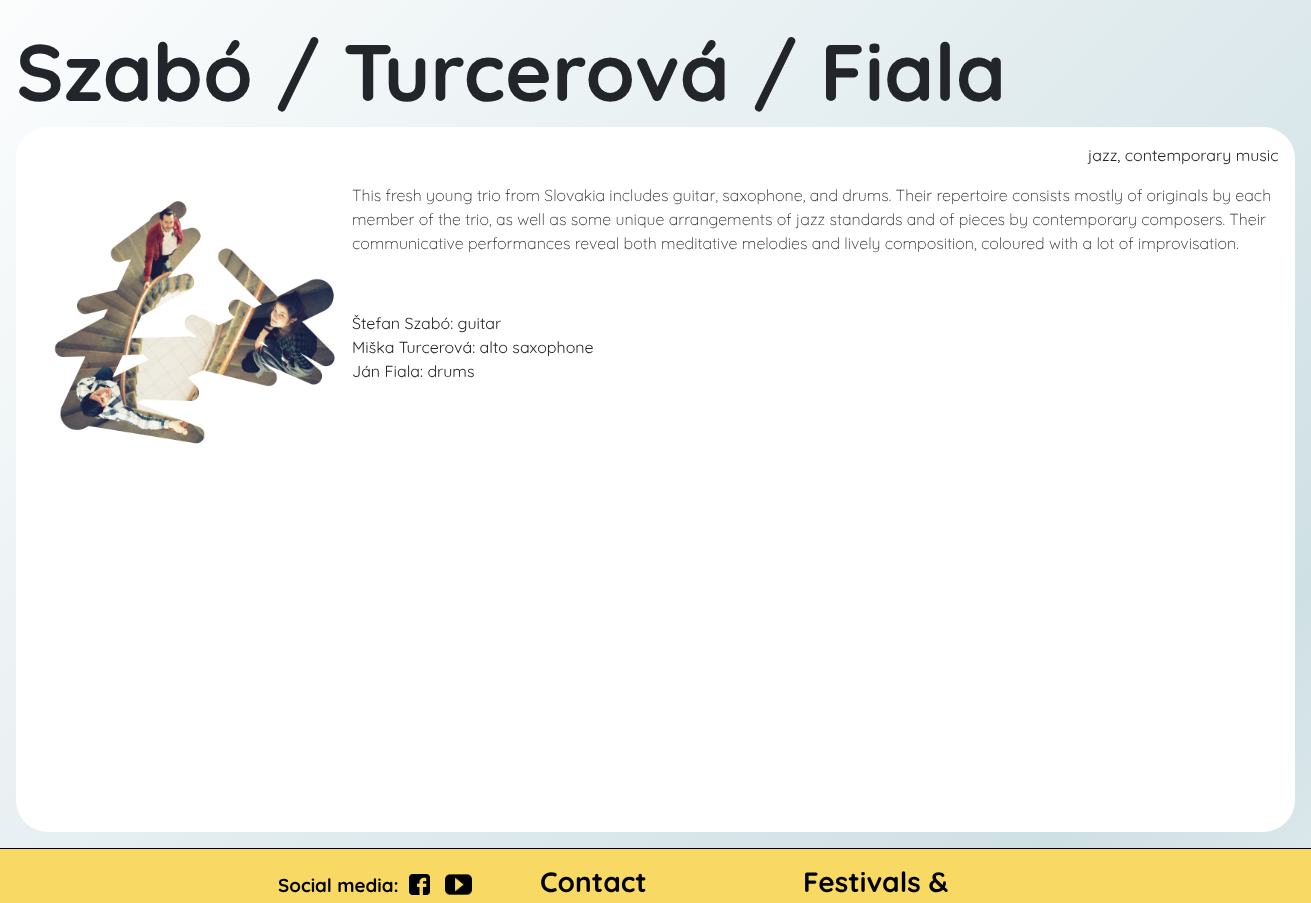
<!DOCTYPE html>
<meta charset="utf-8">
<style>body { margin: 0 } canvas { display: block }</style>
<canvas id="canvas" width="1311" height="903"></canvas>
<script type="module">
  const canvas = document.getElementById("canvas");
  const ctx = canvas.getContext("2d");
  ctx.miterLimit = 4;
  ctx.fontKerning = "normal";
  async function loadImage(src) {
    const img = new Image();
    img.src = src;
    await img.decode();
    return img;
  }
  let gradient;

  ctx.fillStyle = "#ffffff";
  ctx.fillRect(0, 0, 1311, 903);
  gradient = ctx.createLinearGradient(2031, 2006, -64, -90);
  gradient.addColorStop(0, "#ddeaed");
  gradient.addColorStop(0.25, "#ffffff");
  gradient.addColorStop(0.51, "#cfe0e5");
  gradient.addColorStop(1, "#ffffff");
  ctx.fillStyle = gradient;
  ctx.fillRect(0, 0, 1311, 848);
  ctx.font = "300 80px Quicksand";
  ctx.fillStyle = "#22262a";
  ctx.fillText("Szabó / Turcerová / Fiala", 16, 101);
  ctx.fillStyle = "#ffffff";
  ctx.beginPath();
  ctx.roundRect(16, 127, 1279, 705, 32);
  ctx.fill();
  ctx.font = "300 16px 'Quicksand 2'";
  ctx.fillStyle = "#22262a";
  ctx.fillText("jazz, contemporary music", 1088, 161);
  ctx.font = "300 16px 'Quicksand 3'";
  ctx.fillText("This fresh young trio from Slovakia includes guitar, saxophone, and drums. Their repertoire consists mostly of originals by each", 352, 201);
  ctx.drawImage(await loadImage("img1.png"), 54, 201, 281, 243);
  ctx.fillText("member of the trio, as well as some unique arrangements of jazz standards and of pieces by contemporary composers. Their", 352, 225);
  ctx.fillText("communicative performances reveal both meditative melodies and lively composition, coloured with a lot of improvisation.", 352, 249);
  ctx.font = "300 16px 'Quicksand 2'";
  ctx.fillText("Štefan Szabó: guitar", 352, 329);
  ctx.fillText("Miška Turcerová: alto saxophone", 352, 353);
  ctx.fillText("Ján Fiala: drums", 352, 377);
  ctx.fillStyle = "#000000";
  ctx.fillRect(0, 848, 1311, 1);
  ctx.fillStyle = "#f7d963";
  ctx.fillRect(0, 849, 1311, 54);
  ctx.font = "300 18.75px Quicksand";
  ctx.fillStyle = "#000000";
  ctx.fillText("Social media:", 278, 892);
  ctx.drawImage(await loadImage("img2.png"), 409, 874, 21, 21);
  ctx.drawImage(await loadImage("img3.png"), 445, 874, 27, 21);
  ctx.font = "300 28px Quicksand";
  ctx.fillText("Contact", 540, 892);
  ctx.fillText("Festivals &", 803, 892);
</script>
